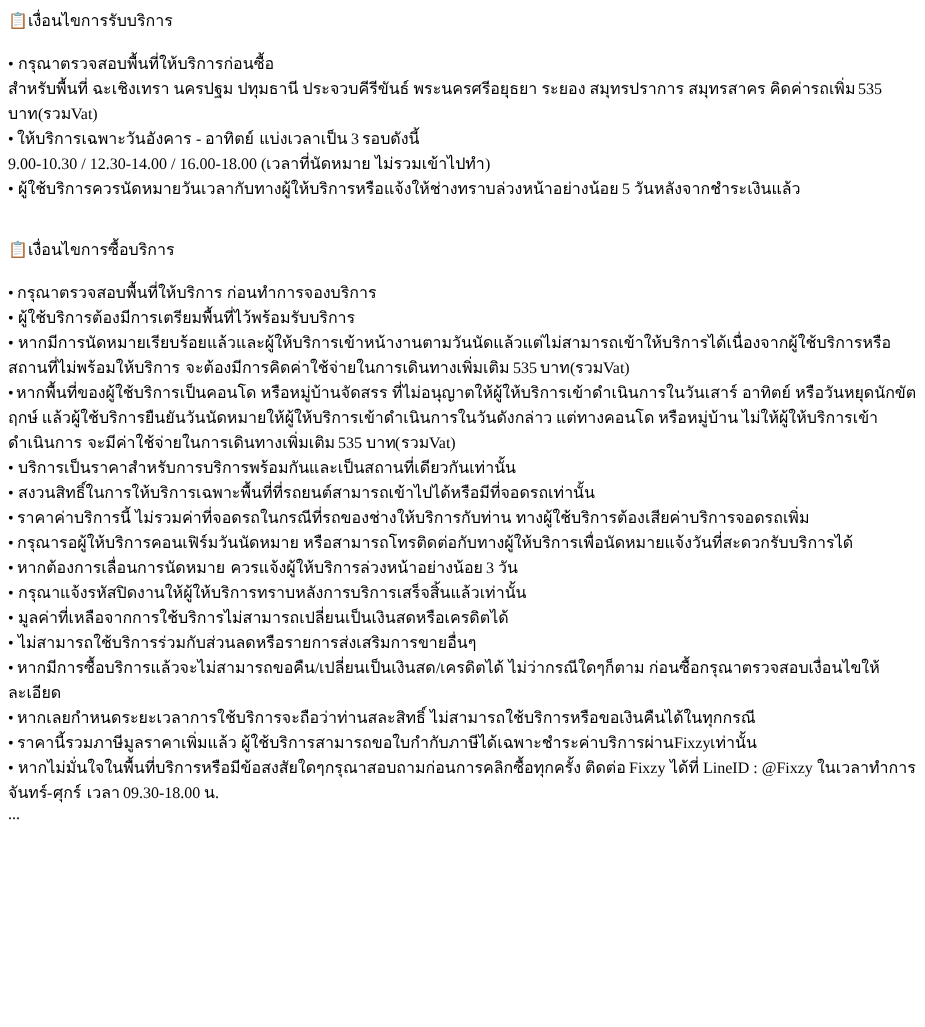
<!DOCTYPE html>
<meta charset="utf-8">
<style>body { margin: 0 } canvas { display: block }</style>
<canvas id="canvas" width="925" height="1027"></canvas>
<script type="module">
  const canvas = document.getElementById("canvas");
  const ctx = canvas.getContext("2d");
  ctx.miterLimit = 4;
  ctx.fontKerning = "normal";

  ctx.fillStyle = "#ffffff";
  ctx.fillRect(0, 0, 925, 1027);
  ctx.font = "16px Noto Color Emoji";
  ctx.fillStyle = "#000000";
  ctx.fillText("📋", 8, 26);
  ctx.font = "16px Loma";
  ctx.fillText("เงื่อนไขการรับบริการ", 28, 26);
  ctx.font = "16px Liberation Serif";
  ctx.fillText("•", 8, 69);
  ctx.font = "16px Loma";
  ctx.fillText("กรุณาตรวจสอบพื้นที่ให้บริการก่อนซื้อ", 18, 69);
  ctx.wordSpacing = "-1.25px";
  ctx.fillText("สำหรับพื้นที่ ฉะเชิงเทรา นครปฐม ปทุมธานี ประจวบคีรีขันธ์ พระนครศรีอยุธยา ระยอง สมุทรปราการ สมุทรสาคร คิดค่ารถเพิ่ม", 8, 94);
  ctx.wordSpacing = "0px";
  ctx.font = "16px Liberation Serif";
  ctx.fillText("535", 858, 94);
  ctx.font = "16px Loma";
  ctx.fillText("บาท รวม", 8, 119);
  ctx.font = "16px Liberation Serif";
  ctx.fillText("(", 38, 119);
  ctx.fillText("Vat)", 71, 119);
  ctx.fillText("•", 8, 144);
  ctx.font = "16px Loma";
  ctx.fillText("ให้บริการเฉพาะวันอังคาร", 17, 144);
  ctx.font = "16px Liberation Serif";
  ctx.fillText("-", 196, 144);
  ctx.font = "16px Loma";
  ctx.fillText("อาทิตย์ แบ่งเวลาเป็น", 205, 144);
  ctx.font = "16px Liberation Serif";
  ctx.fillText("3", 351, 144);
  ctx.font = "16px Loma";
  ctx.fillText("รอบดังนี้", 362, 144);
  ctx.font = "16px Liberation Serif";
  ctx.fillText("9.00-10.30 / 12.30-14.00 / 16.00-18.00 (", 8, 169);
  ctx.font = "16px Loma";
  ctx.fillText("เวลาที่นัดหมาย", 266, 169);
  ctx.fillText("ไม่รวมเข้าไปทำ", 375, 169);
  ctx.font = "16px Liberation Serif";
  ctx.fillText(")", 485, 169);
  ctx.fillText("•", 8, 194);
  ctx.font = "16px Loma";
  ctx.fillText("ผู้ใช้บริการควรนัดหมายวันเวลากับทางผู้ให้บริการหรือแจ้งให้ช่างทราบล่วงหน้าอย่างน้อย", 18, 194);
  ctx.font = "16px Liberation Serif";
  ctx.fillText("5", 622, 194);
  ctx.font = "16px Loma";
  ctx.fillText("วันหลังจากชำระเงินแล้ว", 634, 194);
  ctx.font = "16px Noto Color Emoji";
  ctx.fillText("📋", 8, 255);
  ctx.font = "16px Loma";
  ctx.fillText("เงื่อนไขการซื้อบริการ", 28, 255);
  ctx.font = "16px Liberation Serif";
  ctx.fillText("•", 8, 298);
  ctx.wordSpacing = "-1px";
  ctx.font = "16px Loma";
  ctx.fillText("กรุณาตรวจสอบพื้นที่ให้บริการ ก่อนทำการจองบริการ", 17, 298);
  ctx.wordSpacing = "0px";
  ctx.font = "16px Liberation Serif";
  ctx.fillText("•", 8, 323);
  ctx.font = "16px Loma";
  ctx.fillText("ผู้ใช้บริการต้องมีการเตรียมพื้นที่ไว้พร้อมรับบริการ", 18, 323);
  ctx.font = "16px Liberation Serif";
  ctx.fillText("•", 8, 348);
  ctx.font = "16px Loma";
  ctx.fillText("หากมีการนัดหมายเรียบร้อยแล้วและผู้ให้บริการเข้าหน้างานตามวันนัดแล้วแต่ไม่สามารถเข้าให้บริการได้เนื่องจากผู้ใช้บริการหรือ", 18, 348);
  ctx.fillText("สถานที่ไม่พร้อมให้บริการ จะต้องมีการคิดค่าใช้จ่ายในการเดินทางเพิ่มเติม", 8, 373);
  ctx.font = "16px Liberation Serif";
  ctx.fillText("535", 513, 373);
  ctx.font = "16px Loma";
  ctx.fillText("บาท รวม", 540, 373);
  ctx.font = "16px Liberation Serif";
  ctx.fillText("(", 570, 373);
  ctx.fillText("Vat)", 603, 373);
  ctx.fillText("•", 8, 398);
  ctx.wordSpacing = "-1px";
  ctx.font = "16px Loma";
  ctx.fillText("หากพื้นที่ของผู้ใช้บริการเป็นคอนโด หรือหมู่บ้านจัดสรร ที่ไม่อนุญาตให้ผู้ให้บริการเข้าดำเนินการในวันเสาร์ อาทิตย์ หรือวันหยุดนักขัต", 16, 398);
  ctx.wordSpacing = "-1.5px";
  ctx.fillText("ฤกษ์ แล้วผู้ใช้บริการยืนยันวันนัดหมายให้ผู้ให้บริการเข้าดำเนินการในวันดังกล่าว แต่ทางคอนโด หรือหมู่บ้าน ไม่ให้ผู้ให้บริการเข้า", 8, 423);
  ctx.wordSpacing = "0px";
  ctx.fillText("ดำเนินการ จะมีค่าใช้จ่ายในการเดินทางเพิ่มเติม", 8, 448);
  ctx.font = "16px Liberation Serif";
  ctx.fillText("535", 338, 448);
  ctx.font = "16px Loma";
  ctx.fillText("บาท รวม", 366, 448);
  ctx.font = "16px Liberation Serif";
  ctx.fillText("(", 395, 448);
  ctx.fillText("Vat)", 429, 448);
  ctx.fillText("•", 8, 473);
  ctx.font = "16px Loma";
  ctx.fillText("บริการเป็นราคาสำหรับการบริการพร้อมกันและเป็นสถานที่เดียวกันเท่านั้น", 18, 473);
  ctx.font = "16px Liberation Serif";
  ctx.fillText("•", 8, 498);
  ctx.font = "16px Loma";
  ctx.fillText("สงวนสิทธิ์ในการให้บริการเฉพาะพื้นที่ที่รถยนต์สามารถเข้าไปได้หรือมีที่จอดรถเท่านั้น", 18, 498);
  ctx.font = "16px Liberation Serif";
  ctx.fillText("•", 8, 523);
  ctx.wordSpacing = "-1px";
  ctx.font = "16px Loma";
  ctx.fillText("ราคาค่าบริการนี้ ไม่รวมค่าที่จอดรถในกรณีที่รถของช่างให้บริการกับท่าน ทางผู้ใช้บริการต้องเสียค่าบริการจอดรถเพิ่ม", 17, 523);
  ctx.wordSpacing = "0px";
  ctx.font = "16px Liberation Serif";
  ctx.fillText("•", 8, 548);
  ctx.wordSpacing = "-1px";
  ctx.font = "16px Loma";
  ctx.fillText("กรุณารอผู้ให้บริการคอนเฟิร์มวันนัดหมาย หรือสามารถโทรติดต่อกับทางผู้ให้บริการเพื่อนัดหมายแจ้งวันที่สะดวกรับบริการได้", 17, 548);
  ctx.wordSpacing = "0px";
  ctx.font = "16px Liberation Serif";
  ctx.fillText("•", 8, 573);
  ctx.font = "16px Loma";
  ctx.fillText("หากต้องการเลื่อนการนัดหมาย ควรแจ้งผู้ให้บริการล่วงหน้าอย่างน้อย", 17, 573);
  ctx.font = "16px Liberation Serif";
  ctx.fillText("3", 486, 573);
  ctx.font = "16px Loma";
  ctx.fillText("วัน", 498, 573);
  ctx.font = "16px Liberation Serif";
  ctx.fillText("•", 8, 598);
  ctx.font = "16px Loma";
  ctx.fillText("กรุณาแจ้งรหัสปิดงานให้ผู้ให้บริการทราบหลังการบริการเสร็จสิ้นแล้วเท่านั้น", 18, 598);
  ctx.font = "16px Liberation Serif";
  ctx.fillText("•", 8, 623);
  ctx.font = "16px Loma";
  ctx.fillText("มูลค่าที่เหลือจากการใช้บริการไม่สามารถเปลี่ยนเป็นเงินสดหรือเครดิตได้", 18, 623);
  ctx.font = "16px Liberation Serif";
  ctx.fillText("•", 8, 648);
  ctx.font = "16px Loma";
  ctx.fillText("ไม่สามารถใช้บริการร่วมกับส่วนลดหรือรายการส่งเสริมการขายอื่นๆ", 18, 648);
  ctx.font = "16px Liberation Serif";
  ctx.fillText("•", 8, 673);
  ctx.font = "16px Loma";
  ctx.fillText("หากมีการซื้อบริการแล้วจะไม่สามารถขอคืน", 17, 673);
  ctx.font = "16px Liberation Serif";
  ctx.fillText("/", 315, 673);
  ctx.font = "16px Loma";
  ctx.fillText("เปลี่ยนเป็นเงินสด", 319, 673);
  ctx.font = "16px Liberation Serif";
  ctx.fillText("/", 436, 673);
  ctx.wordSpacing = "-1px";
  ctx.font = "16px Loma";
  ctx.fillText("เครดิตได้ ไม่ว่ากรณีใดๆก็ตาม ก่อนซื้อกรุณาตรวจสอบเงื่อนไขให้", 440, 673);
  ctx.wordSpacing = "0px";
  ctx.fillText("ละเอียด", 8, 698);
  ctx.font = "16px Liberation Serif";
  ctx.fillText("•", 8, 723);
  ctx.wordSpacing = "-1px";
  ctx.font = "16px Loma";
  ctx.fillText("หากเลยกำหนดระยะเวลาการใช้บริการจะถือว่าท่านสละสิทธิ์ ไม่สามารถใช้บริการหรือขอเงินคืนได้ในทุกกรณี", 17, 723);
  ctx.wordSpacing = "0px";
  ctx.font = "16px Liberation Serif";
  ctx.fillText("•", 8, 748);
  ctx.wordSpacing = "-1px";
  ctx.font = "16px Loma";
  ctx.fillText("ราคานี้รวมภาษีมูลราคาเพิ่มแล้ว ผู้ใช้บริการสามารถขอใบกำกับภาษีได้เฉพาะชำระค่าบริการผ่าน", 17, 748);
  ctx.wordSpacing = "0px";
  ctx.font = "16px Liberation Serif";
  ctx.fillText("Fixzy", 674, 748);
  ctx.font = "16px Loma";
  ctx.fillText("เท่านั้น", 710, 748);
  ctx.font = "16px Liberation Serif";
  ctx.fillText("•", 8, 773);
  ctx.font = "16px Loma";
  ctx.fillText("หากไม่มั่นใจในพื้นที่บริการหรือมีข้อสงสัยใดๆกรุณาสอบถามก่อนการคลิกซื้อทุกครั้ง", 18, 773);
  ctx.fillText("ติดต่อ", 585, 773);
  ctx.font = "16px Liberation Serif";
  ctx.fillText("Fixzy", 629, 773);
  ctx.font = "16px Loma";
  ctx.fillText("ได้ที่", 670, 773);
  ctx.font = "16px Liberation Serif";
  ctx.fillText("LineID : @Fixzy", 703, 773);
  ctx.font = "16px Loma";
  ctx.fillText("ในเวลาทำการ", 817, 773);
  ctx.fillText("จันทร์", 8, 798);
  ctx.font = "16px Liberation Serif";
  ctx.fillText("-", 47, 798);
  ctx.font = "16px Loma";
  ctx.fillText("ศุกร์ เวลา", 53, 798);
  ctx.font = "16px Liberation Serif";
  ctx.fillText("09.30-18.00", 123, 798);
  ctx.font = "16px Loma";
  ctx.fillText("น", 204, 798);
  ctx.font = "16px Liberation Serif";
  ctx.fillText(".", 215, 798);
  ctx.fillText("...", 8, 819);
</script>
